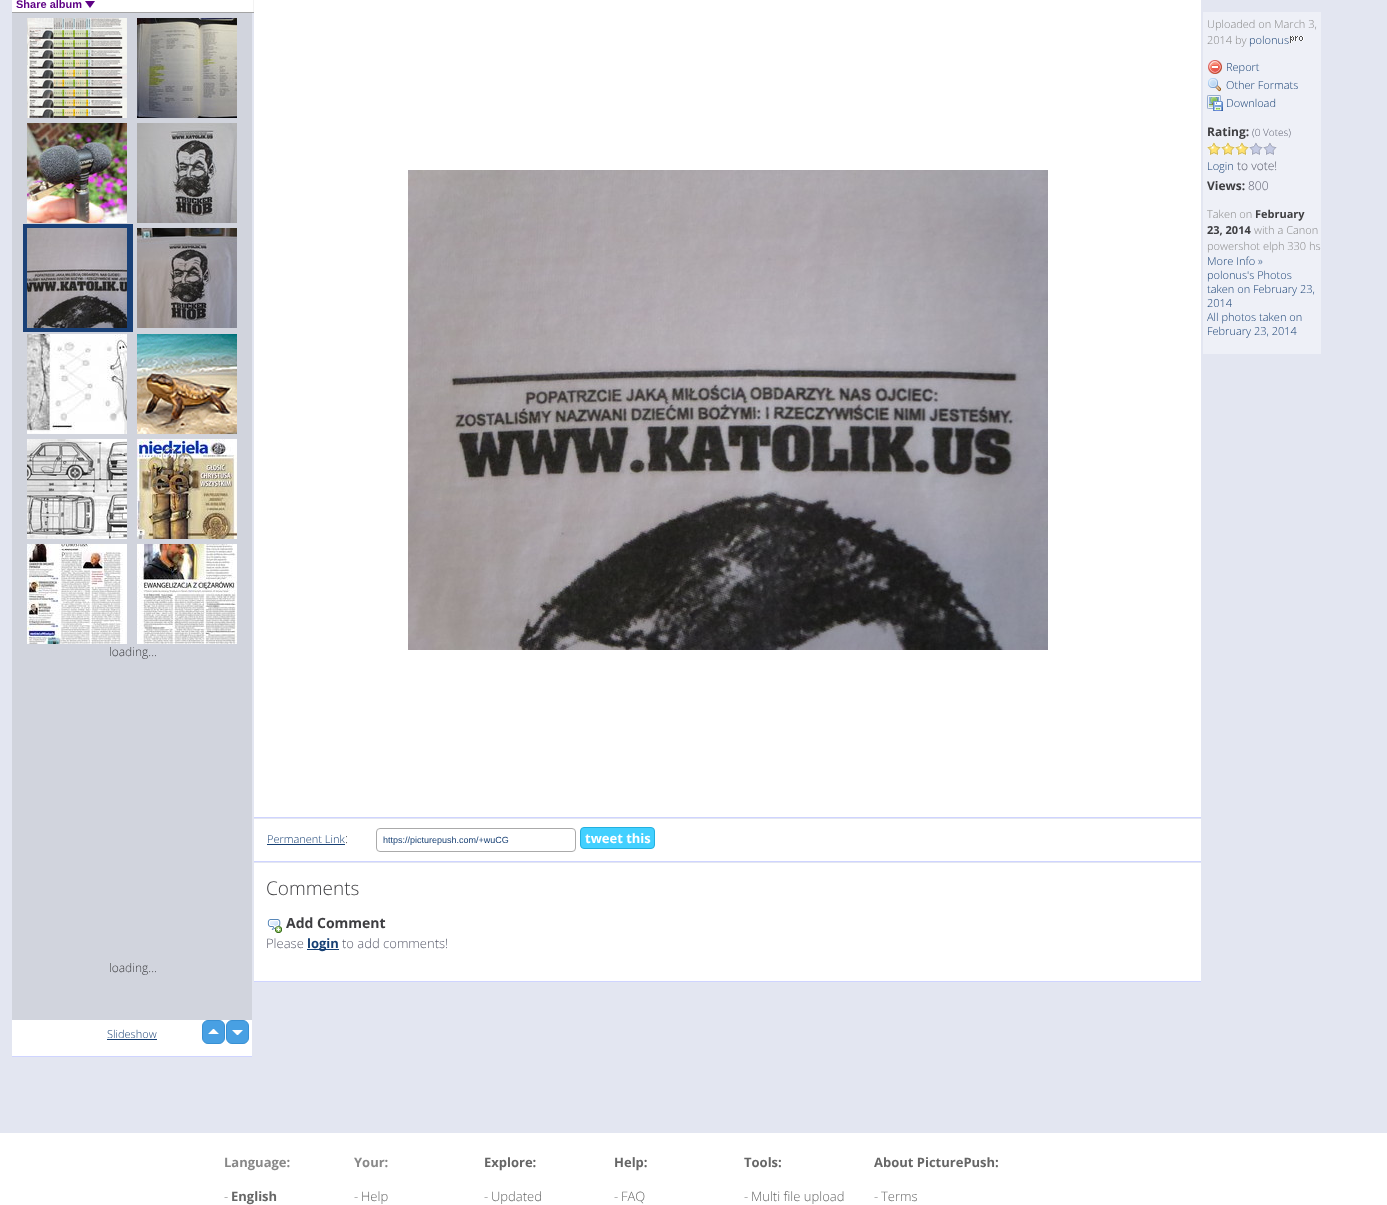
<!DOCTYPE html>
<meta charset="utf-8">
<style>body { margin: 0 } canvas { display: block }</style>
<canvas id="canvas" width="1387" height="1205"></canvas>
<script type="module">
  const canvas = document.getElementById("canvas");
  const ctx = canvas.getContext("2d");
  ctx.miterLimit = 4;
  ctx.fontKerning = "normal";
  async function loadImage(src) {
    const img = new Image();
    img.src = src;
    await img.decode();
    return img;
  }

  ctx.fillStyle = "#e3e6f1";
  ctx.fillRect(0, 0, 1387, 1205);
  ctx.fillStyle = "#ffffff";
  ctx.fillRect(12, 0, 241, 12);
  ctx.fillStyle = "#f3f3f3";
  ctx.fillRect(253, 0, 1, 13);
  ctx.fillStyle = "#a4a4a4";
  ctx.fillRect(12, 12, 242, 1);
  ctx.font = "bold 11px Liberation Sans";
  ctx.fillStyle = "#5e0085";
  ctx.fillText("Share album", 16, 8);
  ctx.beginPath();
  ctx.moveTo(85, 1);
  ctx.lineTo(95, 1);
  ctx.lineTo(90, 8);
  ctx.closePath();
  ctx.fill();
  ctx.fillStyle = "#d1d4dd";
  ctx.fillRect(12, 13, 240, 1007);
  ctx.fillStyle = "#cfd4ff";
  ctx.fillRect(12, 1056, 240, 1);
  ctx.drawImage(await loadImage("img1.png"), 27, 18, 100, 100);
  ctx.drawImage(await loadImage("img2.png"), 137, 18, 100, 100);
  ctx.drawImage(await loadImage("img3.png"), 27, 123, 100, 100);
  ctx.drawImage(await loadImage("img4.png"), 137, 123, 100, 100);
  ctx.fillStyle = "#194077";
  ctx.fillRect(23, 224, 110, 108);
  ctx.drawImage(await loadImage("img5.png"), 27, 228, 100, 100);
  ctx.drawImage(await loadImage("img6.png"), 137, 228, 100, 100);
  ctx.drawImage(await loadImage("img7.png"), 27, 334, 100, 100);
  ctx.drawImage(await loadImage("img8.png"), 137, 334, 100, 100);
  ctx.drawImage(await loadImage("img9.png"), 27, 439, 100, 100);
  ctx.drawImage(await loadImage("img10.png"), 137, 439, 100, 100);
  ctx.drawImage(await loadImage("img11.png"), 27, 544, 100, 100);
  ctx.drawImage(await loadImage("img12.png"), 137, 544, 100, 100);
  ctx.font = "300 12px Open Sans";
  ctx.fillStyle = "#3e3e41";
  ctx.fillText("loading...", 109, 656);
  ctx.fillText("loading...", 109, 972);
  ctx.fillStyle = "#ffffff";
  ctx.fillRect(12, 1020, 240, 36);
  ctx.fillStyle = "#48a0e3";
  ctx.beginPath();
  ctx.roundRect(202.5, 1020.5, 22, 23, 5.5);
  ctx.fill();
  ctx.strokeStyle = "#3890d3";
  ctx.stroke();
  ctx.beginPath();
  ctx.roundRect(226.5, 1020.5, 22, 23, 5.5);
  ctx.fill();
  ctx.stroke();
  ctx.fillStyle = "#ffffff";
  ctx.beginPath();
  ctx.moveTo(219, 1034);
  ctx.lineTo(208, 1034);
  ctx.lineTo(213, 1029);
  ctx.lineTo(214, 1029);
  ctx.closePath();
  ctx.moveTo(232, 1030);
  ctx.lineTo(243, 1030);
  ctx.lineTo(238, 1035);
  ctx.lineTo(237, 1035);
  ctx.closePath();
  ctx.fill();
  ctx.font = "300 11px Open Sans";
  ctx.fillStyle = "#163f73";
  ctx.fillText("Slideshow", 107, 1038);
  ctx.fillRect(107, 1039, 50, 1);
  ctx.fillStyle = "#ffffff";
  ctx.fillRect(254, 0, 947, 817);
  ctx.fillStyle = "#cfd4ff";
  ctx.fillRect(254, 817, 947, 1);
  ctx.drawImage(await loadImage("img13.png"), 408, 170, 640, 480);
  ctx.fillStyle = "#eef0f7";
  ctx.fillRect(1203, 12, 118, 342);
  ctx.fillStyle = "#888888";
  ctx.fillText("Uploaded on March 3,", 1207, 28);
  ctx.fillText("2014 by", 1207, 44);
  ctx.fillStyle = "#163f73";
  ctx.fillText("polonus", 1249, 44);
  ctx.drawImage(await loadImage("img14.png"), 1290, 36, 14, 7);
  ctx.drawImage(await loadImage("img15.png"), 1208, 60, 14, 14);
  ctx.fillText("Report", 1226, 71);
  ctx.drawImage(await loadImage("img16.png"), 1208, 78, 13, 14);
  ctx.fillText("Other Formats", 1226, 89);
  ctx.drawImage(await loadImage("img17.png"), 1207, 95, 16, 16);
  ctx.fillText("Download", 1226, 107);
  ctx.font = "bold 12px Open Sans";
  ctx.fillStyle = "#3e3e41";
  ctx.fillText("Rating:", 1207, 136);
  ctx.font = "300 10px Open Sans";
  ctx.fillStyle = "#5a5c6c";
  ctx.fillText("(0 Votes)", 1252, 136);
  ctx.drawImage(await loadImage("img18.png"), 1207, 142, 14, 13);
  ctx.drawImage(await loadImage("img18.png"), 1221, 142, 14, 13);
  ctx.drawImage(await loadImage("img18.png"), 1235, 142, 14, 13);
  ctx.drawImage(await loadImage("img19.png"), 1249, 142, 14, 13);
  ctx.drawImage(await loadImage("img19.png"), 1263, 142, 14, 13);
  ctx.font = "300 11px Open Sans";
  ctx.fillStyle = "#163f73";
  ctx.fillText("Login", 1207, 170);
  ctx.font = "300 12px Open Sans";
  ctx.fillStyle = "#5a5c6c";
  ctx.fillText("to vote!", 1237, 170);
  ctx.font = "bold 12px Open Sans";
  ctx.fillStyle = "#3e3e41";
  ctx.fillText("Views:", 1207, 190);
  ctx.font = "300 12px Open Sans";
  ctx.fillStyle = "#5a5c6c";
  ctx.fillText("800", 1248, 190);
  ctx.font = "300 11px Open Sans";
  ctx.fillStyle = "#888888";
  ctx.fillText("Taken on", 1207, 218);
  ctx.font = "bold 11px Open Sans";
  ctx.fillStyle = "#3e3e41";
  ctx.fillText("February", 1255, 218);
  ctx.fillText("23, 2014", 1207, 234);
  ctx.font = "300 11px Open Sans";
  ctx.fillStyle = "#888888";
  ctx.fillText("with a Canon", 1254, 234);
  ctx.fillText("powershot elph 330 hs", 1207, 250);
  ctx.fillStyle = "#163f73";
  ctx.fillText("More Info »", 1207, 265);
  ctx.fillText("polonus's Photos", 1207, 279);
  ctx.fillText("taken on February 23,", 1207, 293);
  ctx.fillText("2014", 1207, 307);
  ctx.fillText("All photos taken on", 1207, 321);
  ctx.fillText("February 23, 2014", 1207, 335);
  ctx.fillStyle = "#ffffff";
  ctx.fillRect(254, 819, 947, 42);
  ctx.fillStyle = "#cfd4ff";
  ctx.fillRect(254, 861, 947, 1);
  ctx.fillStyle = "#163f73";
  ctx.fillText("Permanent Link", 267, 843);
  ctx.fillRect(267, 844, 78, 1);
  ctx.font = "300 13px Open Sans";
  ctx.fillStyle = "#3e3e41";
  ctx.fillText(":", 345, 843);
  ctx.beginPath();
  ctx.roundRect(376.5, 828.5, 199, 23, 3.5);
  ctx.strokeStyle = "#aaaaaa";
  ctx.stroke();
  ctx.font = "9px Liberation Sans";
  ctx.fillStyle = "#163f73";
  ctx.fillText("https://picturepush.com/+wuCG", 383, 843);
  ctx.fillStyle = "#42d0ff";
  ctx.beginPath();
  ctx.roundRect(580.5, 827.5, 74, 21, 3.5);
  ctx.fill();
  ctx.strokeStyle = "#22b0df";
  ctx.stroke();
  ctx.font = "bold 13px Open Sans";
  ctx.fillStyle = "#ffffff";
  ctx.fillText("tweet this", 585, 843);
  ctx.fillRect(254, 863, 947, 118);
  ctx.fillStyle = "#cfd4ff";
  ctx.fillRect(254, 981, 947, 1);
  ctx.font = "300 19px Open Sans";
  ctx.fillStyle = "#3e3e41";
  ctx.fillText("Comments", 266, 895);
  ctx.drawImage(await loadImage("img20.png"), 267, 919, 15, 14);
  ctx.font = "bold 14px Open Sans";
  ctx.fillText("Add Comment", 286, 928);
  ctx.font = "300 13px Open Sans";
  ctx.fillStyle = "#5a5c6c";
  ctx.fillText("Please", 266, 948);
  ctx.fillStyle = "#163f73";
  ctx.fillRect(307, 949, 32, 1);
  ctx.font = "bold 13px Open Sans";
  ctx.fillText("login", 307, 948);
  ctx.font = "300 13px Open Sans";
  ctx.fillStyle = "#5a5c6c";
  ctx.fillText("to add comments!", 342, 948);
  ctx.fillStyle = "#ffffff";
  ctx.fillRect(0, 1133, 1387, 72);
  ctx.font = "bold 13px Open Sans";
  ctx.fillStyle = "#888888";
  ctx.fillText("Language:", 224, 1167);
  ctx.font = "300 13px Open Sans";
  ctx.fillText("-", 224, 1201);
  ctx.font = "bold 13px Open Sans";
  ctx.fillStyle = "#666666";
  ctx.fillText("English", 231, 1201);
  ctx.fillStyle = "#888888";
  ctx.fillText("Your:", 354, 1167);
  ctx.font = "300 13px Open Sans";
  ctx.fillText("-", 354, 1201);
  ctx.fillStyle = "#666666";
  ctx.fillText("Help", 361, 1201);
  ctx.font = "bold 13px Open Sans";
  ctx.fillText("Explore:", 484, 1167);
  ctx.font = "300 13px Open Sans";
  ctx.fillStyle = "#888888";
  ctx.fillText("-", 484, 1201);
  ctx.fillStyle = "#666666";
  ctx.fillText("Updated", 491, 1201);
  ctx.font = "bold 13px Open Sans";
  ctx.fillText("Help:", 614, 1167);
  ctx.font = "300 13px Open Sans";
  ctx.fillStyle = "#888888";
  ctx.fillText("-", 614, 1201);
  ctx.fillStyle = "#666666";
  ctx.fillText("FAQ", 621, 1201);
  ctx.font = "bold 13px Open Sans";
  ctx.fillText("Tools:", 744, 1167);
  ctx.font = "300 13px Open Sans";
  ctx.fillStyle = "#888888";
  ctx.fillText("-", 744, 1201);
  ctx.fillStyle = "#666666";
  ctx.fillText("Multi file upload", 751, 1201);
  ctx.font = "bold 13px Open Sans";
  ctx.fillText("About PicturePush:", 874, 1167);
  ctx.font = "300 13px Open Sans";
  ctx.fillStyle = "#888888";
  ctx.fillText("-", 874, 1201);
  ctx.fillStyle = "#666666";
  ctx.fillText("Terms", 881, 1201);
</script>
